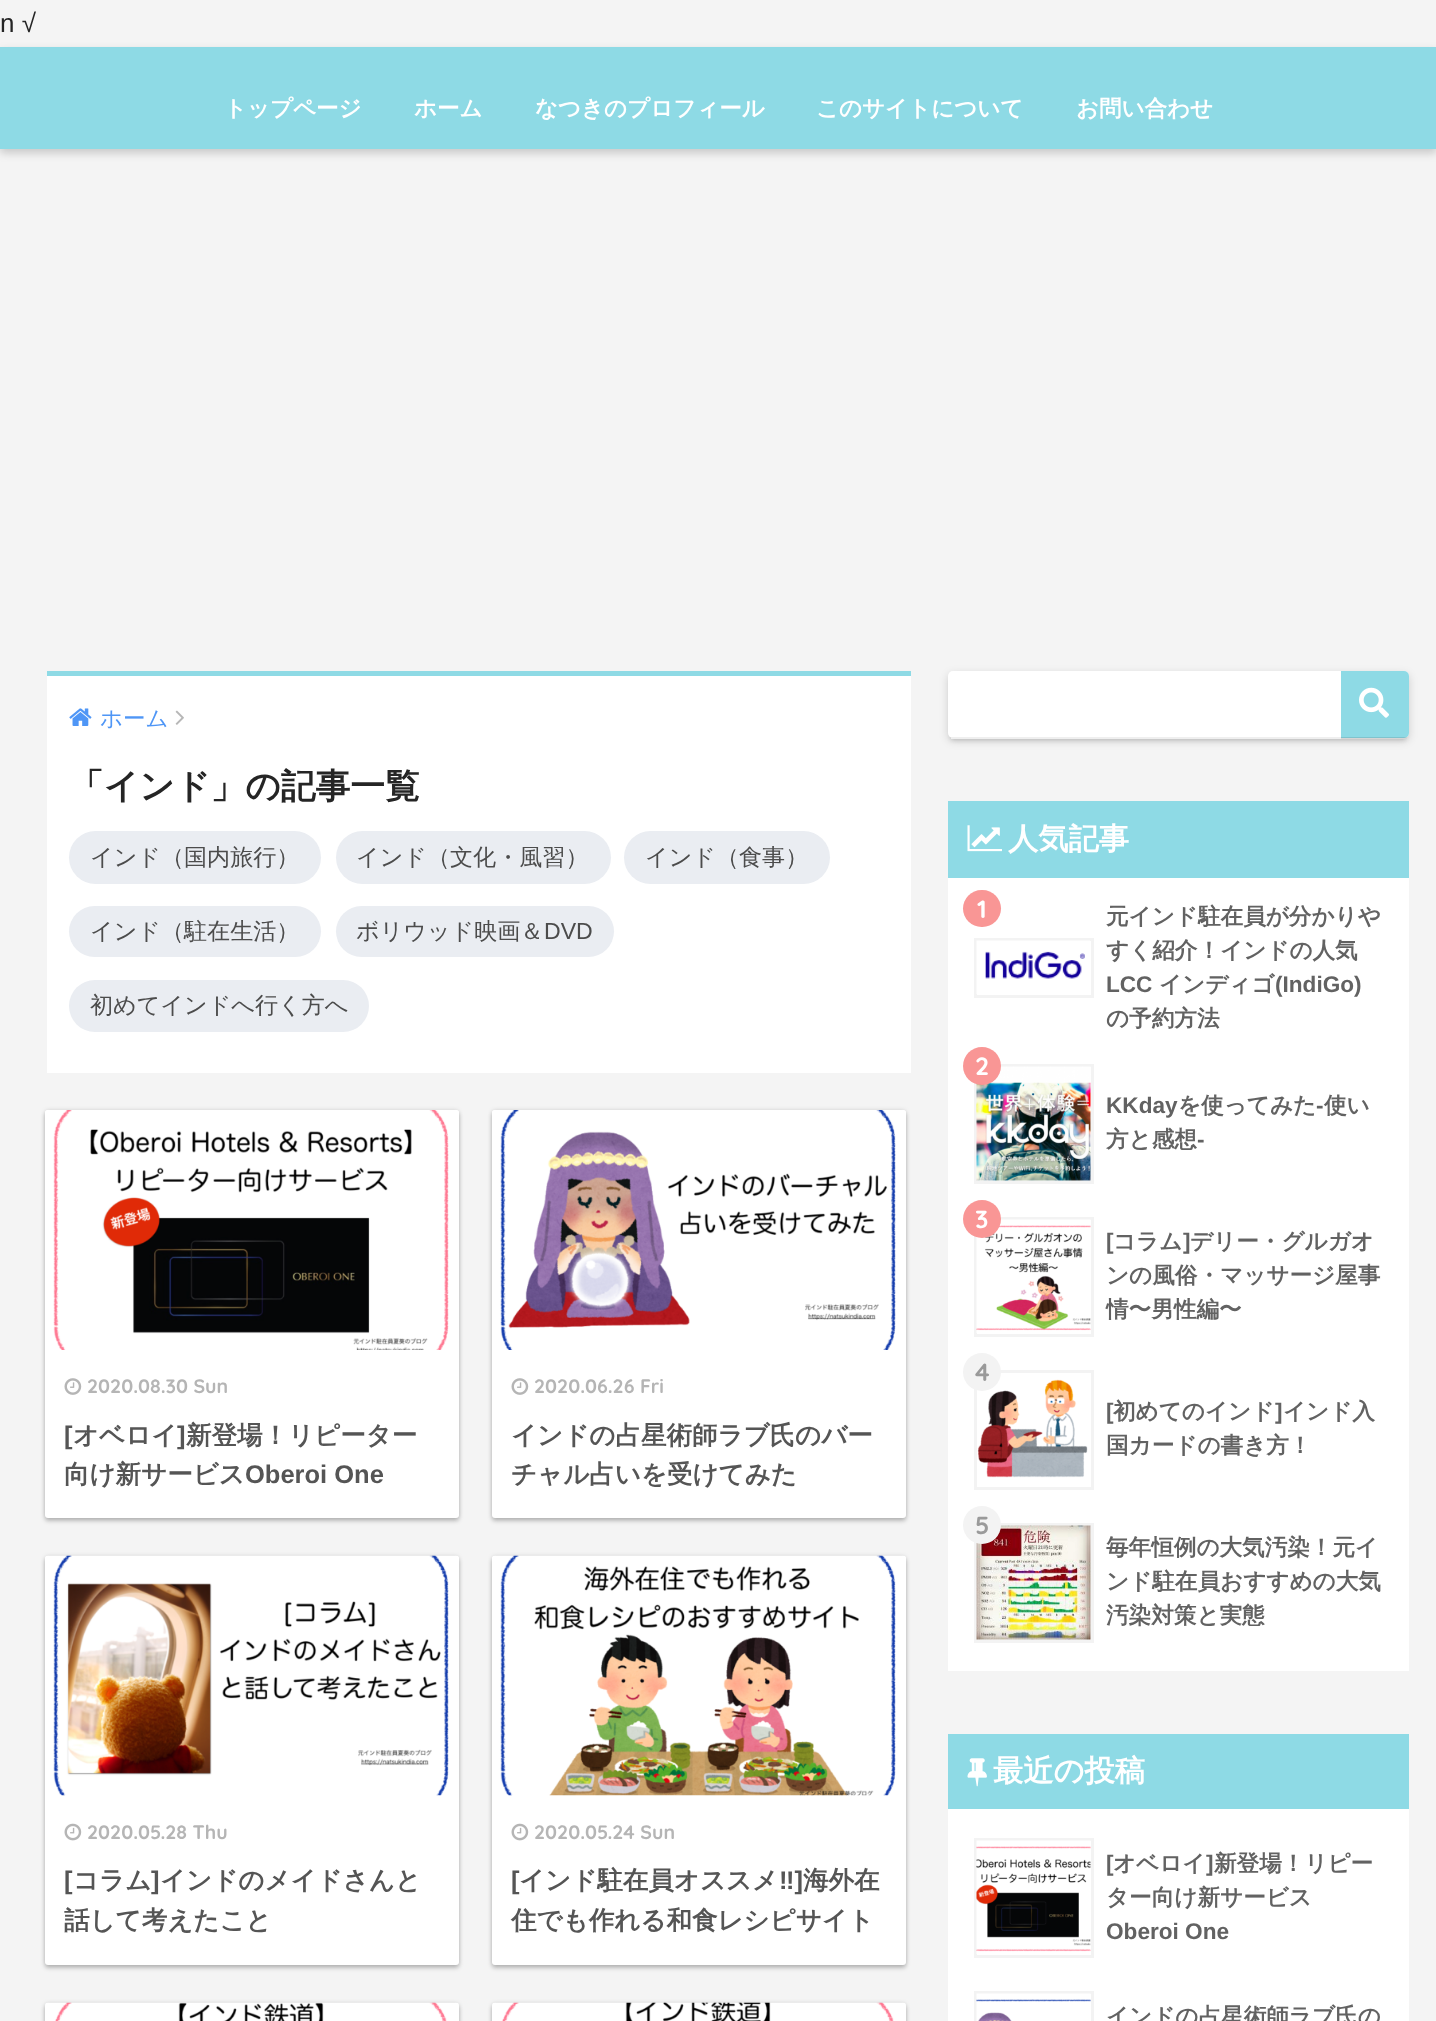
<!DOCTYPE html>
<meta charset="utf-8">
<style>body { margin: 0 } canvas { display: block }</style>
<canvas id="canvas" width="1436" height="2021"></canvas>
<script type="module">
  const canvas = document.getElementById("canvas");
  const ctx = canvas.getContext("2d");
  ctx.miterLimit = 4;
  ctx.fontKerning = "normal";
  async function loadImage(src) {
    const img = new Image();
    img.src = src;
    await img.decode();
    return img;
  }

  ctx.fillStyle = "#f4f4f4";
  ctx.fillRect(0, 0, 1436, 2021);
  ctx.font = "26px Liberation Sans";
  ctx.fillStyle = "#252525";
  ctx.fillText("n √", 0, 32);
  ctx.fillStyle = "rgba(0, 0, 0, 0.18)";
  ctx.filter = "blur(4.5px)";
  ctx.beginPath();
  ctx.rect(0, 51, 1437, 102);
  ctx.fill();
  ctx.filter = "none";
  ctx.fillStyle = "#8edae5";
  ctx.fillRect(0, 47, 1436, 102);
  ctx.font = "bold 22.5px WenQuanYi Zen Hei";
  ctx.fillStyle = "#ffffff";
  ctx.fillText("トップページ", 224, 116);
  ctx.fillText("ホーム", 414, 116);
  ctx.fillText("なつきのプロフィール", 535, 116);
  ctx.fillText("このサイトについて", 816, 116);
  ctx.fillText("お問い合わせ", 1076, 116);
  ctx.fillRect(47, 676, 864, 397);
  ctx.fillStyle = "#8edae5";
  ctx.fillRect(47, 671, 864, 5);
  ctx.drawImage(await loadImage("img1.png"), 69, 708, 23, 18);
  ctx.font = "500 22.5px WenQuanYi Zen Hei";
  ctx.fillStyle = "#4f96f6";
  ctx.fillText("ホーム", 100, 726);
  ctx.drawImage(await loadImage("img2.png"), 175, 710, 9, 15);
  ctx.font = "bold 34.75px WenQuanYi Zen Hei";
  ctx.fillStyle = "#252525";
  ctx.fillText("「インド」の記事一覧", 69, 798);
  ctx.fillStyle = "#eaedf2";
  ctx.beginPath();
  ctx.roundRect(69, 831, 252, 53, 26.5);
  ctx.fill();
  ctx.font = "500 23.1px WenQuanYi Zen Hei";
  ctx.fillStyle = "#4c4c4c";
  ctx.fillText("インド（国内旅行）", 90, 865);
  ctx.fillStyle = "#eaedf2";
  ctx.beginPath();
  ctx.roundRect(336, 831, 275, 53, 26.5);
  ctx.fill();
  ctx.fillStyle = "#4c4c4c";
  ctx.fillText("インド（文化・風習）", 356, 865);
  ctx.fillStyle = "#eaedf2";
  ctx.beginPath();
  ctx.roundRect(624, 831, 206, 53, 26.5);
  ctx.fill();
  ctx.fillStyle = "#4c4c4c";
  ctx.fillText("インド（食事）", 645, 865);
  ctx.fillStyle = "#eaedf2";
  ctx.beginPath();
  ctx.roundRect(69, 906, 252, 51, 25.5);
  ctx.fill();
  ctx.fillStyle = "#4c4c4c";
  ctx.fillText("インド（駐在生活）", 90, 939);
  ctx.fillStyle = "#eaedf2";
  ctx.beginPath();
  ctx.roundRect(336, 906, 278, 51, 25.5);
  ctx.fill();
  ctx.fillStyle = "#4c4c4c";
  ctx.fillText("ボリウッド映画＆", 356, 939);
  ctx.font = "23.1px Liberation Sans";
  ctx.fillText("DVD", 544, 939);
  ctx.fillStyle = "#eaedf2";
  ctx.beginPath();
  ctx.roundRect(69, 980, 300, 52, 26);
  ctx.fill();
  ctx.font = "500 23.1px WenQuanYi Zen Hei";
  ctx.fillStyle = "#4c4c4c";
  ctx.fillText("初めてインドへ行く方へ", 90, 1013);
  ctx.fillStyle = "rgba(0, 0, 0, 0.22)";
  ctx.filter = "blur(2px)";
  ctx.beginPath();
  ctx.roundRect(45, 1113, 414, 408, 3);
  ctx.fill();
  ctx.filter = "none";
  ctx.fillStyle = "rgba(0, 0, 0, 0.12)";
  ctx.filter = "blur(2px)";
  ctx.beginPath();
  ctx.roundRect(45, 1110, 414, 408, 3);
  ctx.fill();
  ctx.filter = "none";
  ctx.fillStyle = "#ffffff";
  ctx.beginPath();
  ctx.roundRect(45, 1110, 414, 408, 3);
  ctx.fill();
  ctx.drawImage(await loadImage("img3.png"), 45, 1110, 414, 240);
  ctx.drawImage(await loadImage("img4.png"), 64, 1378, 18, 17);
  ctx.font = "bold 19.5px Quicksand";
  ctx.fillStyle = "#b5b5b5";
  ctx.fillText("2020.08.30 Sun", 87, 1393);
  ctx.font = "bold 25.5px Liberation Sans";
  ctx.fillStyle = "#555555";
  ctx.fillText("[", 64, 1444);
  ctx.font = "bold 25.5px WenQuanYi Zen Hei";
  ctx.fillText("オベロイ", 73, 1444);
  ctx.font = "bold 25.5px Liberation Sans";
  ctx.fillText("]", 177, 1444);
  ctx.font = "bold 25.5px WenQuanYi Zen Hei";
  ctx.fillText("新登場！リピーター", 186, 1444);
  ctx.fillText("向け新サービス", 64, 1483);
  ctx.font = "bold 25.5px Liberation Sans";
  ctx.fillText("Oberoi One", 245, 1483);
  ctx.fillStyle = "rgba(0, 0, 0, 0.22)";
  ctx.filter = "blur(2px)";
  ctx.beginPath();
  ctx.roundRect(492, 1113, 414, 408, 3);
  ctx.fill();
  ctx.filter = "none";
  ctx.fillStyle = "rgba(0, 0, 0, 0.12)";
  ctx.filter = "blur(2px)";
  ctx.beginPath();
  ctx.roundRect(492, 1110, 414, 408, 3);
  ctx.fill();
  ctx.filter = "none";
  ctx.fillStyle = "#ffffff";
  ctx.beginPath();
  ctx.roundRect(492, 1110, 414, 408, 3);
  ctx.fill();
  ctx.drawImage(await loadImage("img5.png"), 492, 1110, 414, 240);
  ctx.drawImage(await loadImage("img4.png"), 511, 1378, 18, 17);
  ctx.font = "bold 19.5px Quicksand";
  ctx.fillStyle = "#b5b5b5";
  ctx.fillText("2020.06.26 Fri", 534, 1393);
  ctx.font = "bold 25.5px WenQuanYi Zen Hei";
  ctx.fillStyle = "#555555";
  ctx.fillText("インドの占星術師ラブ氏のバー", 511, 1444);
  ctx.fillText("チャル占いを受けてみた", 511, 1483);
  ctx.fillStyle = "rgba(0, 0, 0, 0.22)";
  ctx.filter = "blur(2px)";
  ctx.beginPath();
  ctx.roundRect(45, 1559, 414, 409, 3);
  ctx.fill();
  ctx.filter = "none";
  ctx.fillStyle = "rgba(0, 0, 0, 0.12)";
  ctx.filter = "blur(2px)";
  ctx.beginPath();
  ctx.roundRect(45, 1556, 414, 409, 3);
  ctx.fill();
  ctx.filter = "none";
  ctx.fillStyle = "#ffffff";
  ctx.beginPath();
  ctx.roundRect(45, 1556, 414, 409, 3);
  ctx.fill();
  ctx.drawImage(await loadImage("img6.png"), 45, 1555, 414, 241);
  ctx.drawImage(await loadImage("img7.png"), 64, 1823, 18, 18);
  ctx.font = "bold 19.5px Quicksand";
  ctx.fillStyle = "#b5b5b5";
  ctx.fillText("2020.05.28 Thu", 87, 1839);
  ctx.font = "bold 25.5px Liberation Sans";
  ctx.fillStyle = "#555555";
  ctx.fillText("[", 64, 1889);
  ctx.font = "bold 25.5px WenQuanYi Zen Hei";
  ctx.fillText("コラム", 73, 1889);
  ctx.font = "bold 25.5px Liberation Sans";
  ctx.fillText("]", 151, 1889);
  ctx.font = "bold 25.5px WenQuanYi Zen Hei";
  ctx.fillText("インドのメイドさんと", 160, 1889);
  ctx.fillText("話して考えたこと", 64, 1929);
  ctx.fillStyle = "rgba(0, 0, 0, 0.22)";
  ctx.filter = "blur(2px)";
  ctx.beginPath();
  ctx.roundRect(492, 1559, 414, 409, 3);
  ctx.fill();
  ctx.filter = "none";
  ctx.fillStyle = "rgba(0, 0, 0, 0.12)";
  ctx.filter = "blur(2px)";
  ctx.beginPath();
  ctx.roundRect(492, 1556, 414, 409, 3);
  ctx.fill();
  ctx.filter = "none";
  ctx.fillStyle = "#ffffff";
  ctx.beginPath();
  ctx.roundRect(492, 1556, 414, 409, 3);
  ctx.fill();
  ctx.drawImage(await loadImage("img8.png"), 492, 1555, 414, 241);
  ctx.drawImage(await loadImage("img7.png"), 511, 1823, 18, 18);
  ctx.font = "bold 19.5px Quicksand";
  ctx.fillStyle = "#b5b5b5";
  ctx.fillText("2020.05.24 Sun", 534, 1839);
  ctx.font = "bold 25.5px Liberation Sans";
  ctx.fillStyle = "#555555";
  ctx.fillText("[", 511, 1889);
  ctx.font = "bold 25.5px WenQuanYi Zen Hei";
  ctx.fillText("インド駐在員オススメ", 519, 1889);
  ctx.font = "bold 25.5px Liberation Sans";
  ctx.fillText("‼︎]", 779, 1889);
  ctx.font = "bold 25.5px WenQuanYi Zen Hei";
  ctx.fillText("海外在", 803, 1889);
  ctx.fillText("住でも作れる和食レシピサイト", 511, 1929);
  ctx.fillStyle = "rgba(0, 0, 0, 0.22)";
  ctx.filter = "blur(2px)";
  ctx.beginPath();
  ctx.roundRect(45, 2006, 414, 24, 3);
  ctx.fill();
  ctx.filter = "none";
  ctx.fillStyle = "rgba(0, 0, 0, 0.12)";
  ctx.filter = "blur(2px)";
  ctx.beginPath();
  ctx.roundRect(45, 2003, 414, 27, 3);
  ctx.fill();
  ctx.filter = "none";
  ctx.drawImage(await loadImage("img9.png"), 45, 2002, 414, 19);
  ctx.fillStyle = "rgba(0, 0, 0, 0.22)";
  ctx.filter = "blur(2px)";
  ctx.beginPath();
  ctx.roundRect(492, 2006, 414, 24, 3);
  ctx.fill();
  ctx.filter = "none";
  ctx.fillStyle = "rgba(0, 0, 0, 0.12)";
  ctx.filter = "blur(2px)";
  ctx.beginPath();
  ctx.roundRect(492, 2003, 414, 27, 3);
  ctx.fill();
  ctx.filter = "none";
  ctx.drawImage(await loadImage("img10.png"), 492, 2002, 414, 19);
  ctx.fillStyle = "rgba(0, 0, 0, 0.15)";
  ctx.filter = "blur(2px)";
  ctx.beginPath();
  ctx.roundRect(951, 678, 455, 62, 1.5);
  ctx.fill();
  ctx.filter = "none";
  ctx.filter = "blur(4px)";
  ctx.beginPath();
  ctx.roundRect(948, 674, 461, 67, 5);
  ctx.fill();
  ctx.filter = "none";
  ctx.fillStyle = "#ffffff";
  ctx.beginPath();
  ctx.roundRect(948, 671, 461, 67, 5);
  ctx.fill();
  ctx.fillStyle = "#efefef";
  ctx.fillRect(951, 737, 456, 2);
  ctx.fillStyle = "#8edae5";
  ctx.beginPath();
  ctx.roundRect(1341, 671, 68, 67, [0, 5, 5, 0]);
  ctx.fill();
  ctx.fillStyle = "rgba(0, 0, 0, 0.1)";
  ctx.fillRect(1341, 737, 66, 2);
  ctx.drawImage(await loadImage("img11.png"), 1359, 687, 30, 31);
  ctx.fillStyle = "#ffffff";
  ctx.fillRect(948, 878, 461, 793);
  ctx.fillStyle = "#8edae5";
  ctx.fillRect(948, 801, 461, 77);
  ctx.drawImage(await loadImage("img12.png"), 967, 825, 35, 27);
  ctx.font = "bold 30.25px WenQuanYi Zen Hei";
  ctx.fillStyle = "#ffffff";
  ctx.fillText("人気記事", 1008, 849);
  ctx.fillStyle = "#f99695";
  ctx.beginPath();
  ctx.roundRect(963, 890, 38, 37, 18.5);
  ctx.fill();
  ctx.font = "bold 25px Quicksand";
  ctx.fillStyle = "#ffffff";
  ctx.fillText("1", 977, 918);
  ctx.strokeStyle = "#f3f3f3";
  ctx.lineWidth = 3;
  ctx.strokeRect(975.5, 939.5, 117, 57);
  ctx.drawImage(await loadImage("img13.png"), 976, 940, 114, 54);
  ctx.font = "bold 22.6px WenQuanYi Zen Hei";
  ctx.fillStyle = "#626262";
  ctx.fillText("元インド駐在員が分かりや", 1106, 924);
  ctx.fillText("すく紹介！インドの人気", 1106, 958);
  ctx.font = "bold 22.6px Liberation Sans";
  ctx.fillText("LCC", 1106, 992);
  ctx.font = "bold 22.6px WenQuanYi Zen Hei";
  ctx.fillText("インディゴ", 1159, 992);
  ctx.font = "bold 22.6px Liberation Sans";
  ctx.fillText("(IndiGo)", 1275, 992);
  ctx.font = "bold 22.6px WenQuanYi Zen Hei";
  ctx.fillText("の予約方法", 1106, 1026);
  ctx.strokeRect(975.5, 1065.5, 117, 117);
  ctx.drawImage(await loadImage("img14.png"), 976, 1066, 115, 115);
  ctx.fillStyle = "#f99695";
  ctx.beginPath();
  ctx.arc(982, 1066, 19, 0, Math.PI * 2);
  ctx.fill();
  ctx.font = "bold 25px Quicksand";
  ctx.fillStyle = "#ffffff";
  ctx.fillText("2", 975, 1075);
  ctx.font = "bold 22.6px Liberation Sans";
  ctx.fillStyle = "#626262";
  ctx.fillText("KKday", 1106, 1113);
  ctx.font = "bold 22.6px WenQuanYi Zen Hei";
  ctx.fillText("を使ってみた", 1178, 1113);
  ctx.font = "bold 22.6px Liberation Sans";
  ctx.fillText("-", 1316, 1113);
  ctx.font = "bold 22.6px WenQuanYi Zen Hei";
  ctx.fillText("使い", 1324, 1113);
  ctx.fillText("方と感想", 1106, 1147);
  ctx.font = "bold 22.6px Liberation Sans";
  ctx.fillText("-", 1197, 1147);
  ctx.strokeRect(975.5, 1218.5, 117, 117);
  ctx.drawImage(await loadImage("img15.png"), 976, 1219, 115, 114);
  ctx.fillStyle = "#f99695";
  ctx.beginPath();
  ctx.arc(982, 1219, 19, 0, Math.PI * 2);
  ctx.fill();
  ctx.font = "bold 25px Quicksand";
  ctx.fillStyle = "#ffffff";
  ctx.fillText("3", 975, 1228);
  ctx.font = "bold 22.6px Liberation Sans";
  ctx.fillStyle = "#626262";
  ctx.fillText("[", 1106, 1249);
  ctx.font = "bold 22.6px WenQuanYi Zen Hei";
  ctx.fillText("コラム", 1113, 1249);
  ctx.font = "bold 22.6px Liberation Sans";
  ctx.fillText("]", 1183, 1249);
  ctx.font = "bold 22.6px WenQuanYi Zen Hei";
  ctx.fillText("デリー・グルガオ", 1190, 1249);
  ctx.fillText("ンの風俗・マッサージ屋事", 1106, 1283);
  ctx.fillText("情〜男性編〜", 1106, 1317);
  ctx.strokeRect(975.5, 1371.5, 117, 117);
  ctx.drawImage(await loadImage("img16.png"), 977, 1379, 111, 99);
  ctx.fillStyle = "#f3f3f3";
  ctx.beginPath();
  ctx.arc(982, 1372, 19, 0, Math.PI * 2);
  ctx.fill();
  ctx.font = "bold 25px Quicksand";
  ctx.fillStyle = "#9a9a9a";
  ctx.fillText("4", 975, 1381);
  ctx.font = "bold 22.6px Liberation Sans";
  ctx.fillStyle = "#626262";
  ctx.fillText("[", 1106, 1419);
  ctx.font = "bold 22.6px WenQuanYi Zen Hei";
  ctx.fillText("初めてのインド", 1113, 1419);
  ctx.font = "bold 22.6px Liberation Sans";
  ctx.fillText("]", 1275, 1419);
  ctx.font = "bold 22.6px WenQuanYi Zen Hei";
  ctx.fillText("インド入", 1283, 1419);
  ctx.fillText("国カードの書き方！", 1106, 1453);
  ctx.strokeRect(975.5, 1524.5, 117, 117);
  ctx.drawImage(await loadImage("img17.png"), 976, 1525, 115, 115);
  ctx.fillStyle = "#f3f3f3";
  ctx.beginPath();
  ctx.arc(982, 1525, 19, 0, Math.PI * 2);
  ctx.fill();
  ctx.font = "bold 25px Quicksand";
  ctx.fillStyle = "#9a9a9a";
  ctx.fillText("5", 975, 1534);
  ctx.font = "bold 22.6px WenQuanYi Zen Hei";
  ctx.fillStyle = "#626262";
  ctx.fillText("毎年恒例の大気汚染！元イ", 1106, 1555);
  ctx.fillText("ンド駐在員おすすめの大気", 1106, 1589);
  ctx.fillText("汚染対策と実態", 1106, 1623);
  ctx.fillStyle = "#ffffff";
  ctx.fillRect(948, 1809, 461, 212);
  ctx.fillStyle = "#8edae5";
  ctx.fillRect(948, 1734, 461, 75);
  ctx.drawImage(await loadImage("img18.png"), 967, 1758, 20, 29);
  ctx.font = "bold 30.25px WenQuanYi Zen Hei";
  ctx.fillStyle = "#ffffff";
  ctx.fillText("最近の投稿", 993, 1781);
  ctx.strokeRect(975.5, 1839.5, 117, 117);
  ctx.drawImage(await loadImage("img19.png"), 976, 1840, 115, 114);
  ctx.font = "bold 22.6px Liberation Sans";
  ctx.fillStyle = "#626262";
  ctx.fillText("[", 1106, 1871);
  ctx.font = "bold 22.6px WenQuanYi Zen Hei";
  ctx.fillText("オベロイ", 1113, 1871);
  ctx.font = "bold 22.6px Liberation Sans";
  ctx.fillText("]", 1206, 1871);
  ctx.font = "bold 22.6px WenQuanYi Zen Hei";
  ctx.fillText("新登場！リピー", 1214, 1871);
  ctx.fillText("ター向け新サービス", 1106, 1905);
  ctx.font = "bold 22.6px Liberation Sans";
  ctx.fillText("Oberoi One", 1106, 1939);
  ctx.strokeRect(975.5, 1992.5, 117, 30);
  ctx.drawImage(await loadImage("img20.png"), 976, 1993, 115, 28);
  ctx.font = "bold 22.6px WenQuanYi Zen Hei";
  ctx.fillText("インドの占星術師ラブ氏の", 1106, 2024);
</script>
